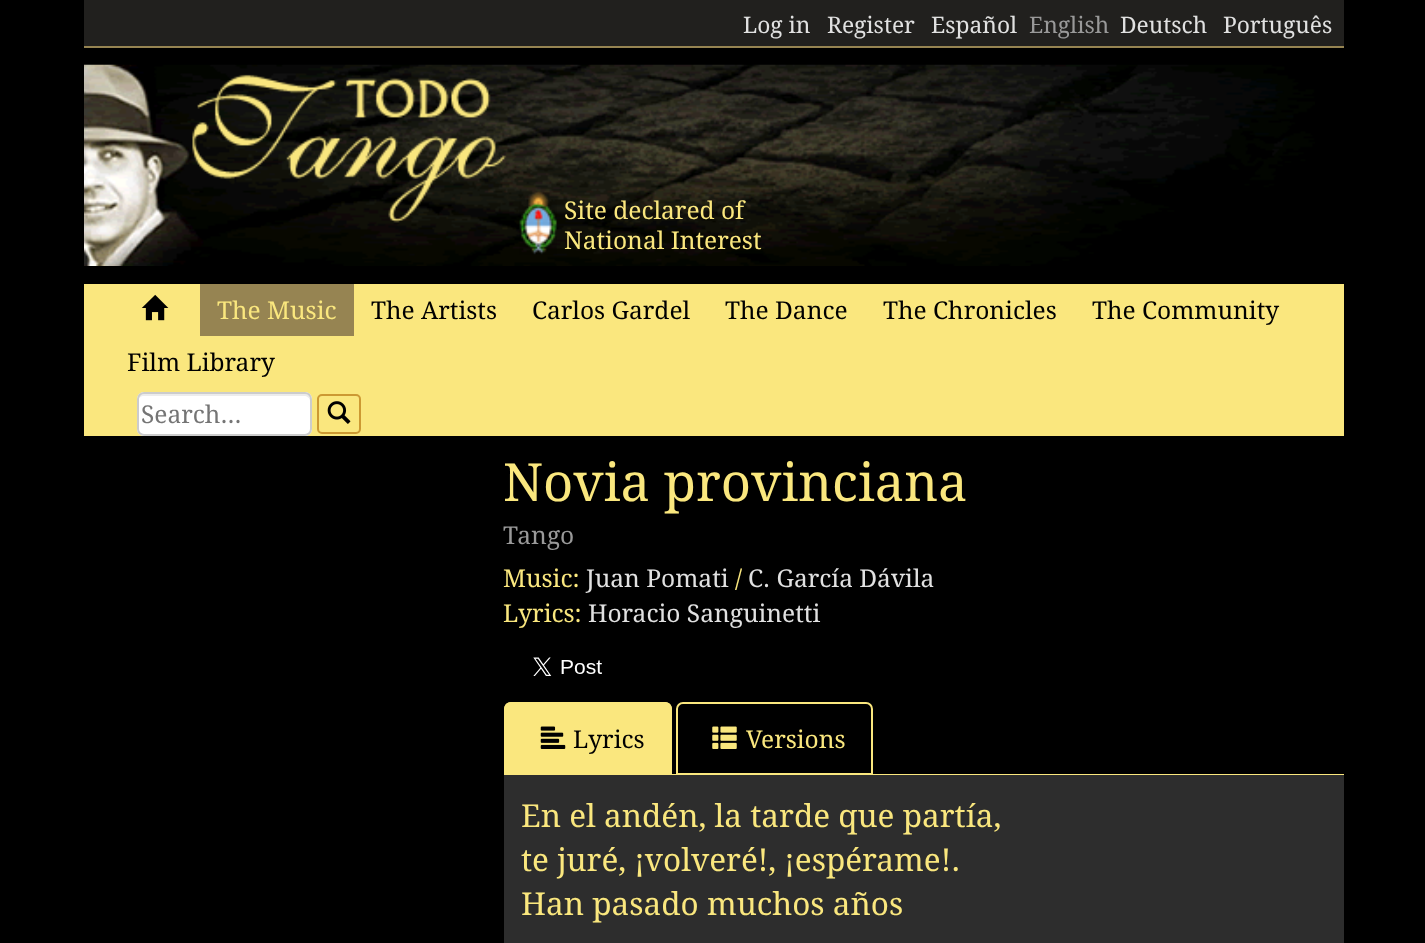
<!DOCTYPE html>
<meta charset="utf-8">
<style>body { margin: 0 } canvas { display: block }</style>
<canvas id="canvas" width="1425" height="943"></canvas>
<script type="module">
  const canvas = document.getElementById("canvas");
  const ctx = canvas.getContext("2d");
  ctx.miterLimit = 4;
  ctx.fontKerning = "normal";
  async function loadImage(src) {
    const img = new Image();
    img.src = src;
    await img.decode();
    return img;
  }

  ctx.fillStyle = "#000000";
  ctx.fillRect(0, 0, 1425, 943);
  ctx.fillStyle = "#21201e";
  ctx.fillRect(84, 0, 1260, 46);
  ctx.fillStyle = "#968452";
  ctx.fillRect(84, 46, 1260, 2);
  ctx.font = "22.75px Droid Serif";
  ctx.fillStyle = "#e1e1e1";
  ctx.fillText("Log in", 743, 33);
  ctx.fillText("Register", 827, 33);
  ctx.fillText("Español", 931, 33);
  ctx.fillStyle = "#999999";
  ctx.fillText("English", 1029, 33);
  ctx.fillStyle = "#e1e1e1";
  ctx.fillText("Deutsch", 1120, 33);
  ctx.fillText("Português", 1223, 33);
  ctx.drawImage(await loadImage("img1.png"), 84, 64, 1231, 202);
  ctx.drawImage(await loadImage("img2.png"), 519, 192, 38, 63);
  ctx.font = "24.5px Droid Serif";
  ctx.fillStyle = "#fae77e";
  ctx.fillText("Site declared of", 564, 219);
  ctx.fillText("National Interest", 564, 249);
  ctx.fillRect(84, 284, 1260, 152);
  ctx.drawImage(await loadImage("img3.png"), 141, 294, 28, 27);
  ctx.fillStyle = "#968452";
  ctx.fillRect(200, 284, 154, 52);
  ctx.fillStyle = "#fae77e";
  ctx.fillText("The Music", 217, 319);
  ctx.fillStyle = "#000000";
  ctx.fillText("The Artists", 371, 319);
  ctx.fillText("Carlos Gardel", 532, 319);
  ctx.fillText("The Dance", 725, 319);
  ctx.fillText("The Chronicles", 883, 319);
  ctx.fillText("The Community", 1092, 319);
  ctx.fillText("Film Library", 127, 371);
  ctx.fillStyle = "#ffffff";
  ctx.beginPath();
  ctx.roundRect(137, 392, 175, 44, 7);
  ctx.fill();
  ctx.fillStyle = "#ececec";
  ctx.beginPath();
  ctx.moveTo(144, 396);
  ctx.lineTo(304, 396);
  ctx.bezierCurveTo(307, 396, 310, 398, 310, 401);
  ctx.lineTo(310, 399);
  ctx.bezierCurveTo(310, 396, 308, 394, 305, 394);
  ctx.lineTo(143, 394);
  ctx.bezierCurveTo(140, 394, 138, 396, 138, 399);
  ctx.lineTo(138, 401);
  ctx.bezierCurveTo(138, 398, 141, 396, 144, 396);
  ctx.closePath();
  ctx.fill();
  ctx.beginPath();
  ctx.roundRect(138, 393, 173, 42, 6);
  ctx.strokeStyle = "#cccccc";
  ctx.lineWidth = 2;
  ctx.stroke();
  ctx.fillStyle = "#757575";
  ctx.fillText("Search...", 141, 423);
  ctx.beginPath();
  ctx.roundRect(318, 395, 42, 38, 4);
  ctx.strokeStyle = "#cc9933";
  ctx.stroke();
  ctx.drawImage(await loadImage("img4.png"), 327, 401, 24, 23);
  ctx.font = "52.5px Droid Serif";
  ctx.fillStyle = "#fae77e";
  ctx.fillText("Novia provinciana", 503, 501);
  ctx.font = "24.5px Droid Serif";
  ctx.fillStyle = "#999999";
  ctx.fillText("Tango", 503, 544);
  ctx.fillStyle = "#fae77e";
  ctx.fillText("Music:", 503, 587);
  ctx.fillStyle = "#e1e1e1";
  ctx.fillText("Juan Pomati", 586, 587);
  ctx.fillStyle = "#fae77e";
  ctx.fillText("/", 735, 587);
  ctx.fillStyle = "#e1e1e1";
  ctx.fillText("C. García Dávila", 748, 587);
  ctx.fillStyle = "#fae77e";
  ctx.fillText("Lyrics:", 503, 622);
  ctx.fillStyle = "#e1e1e1";
  ctx.fillText("Horacio Sanguinetti", 588, 622);
  ctx.drawImage(await loadImage("img5.png"), 533, 657, 69, 19);
  ctx.fillStyle = "#fae77e";
  ctx.fillRect(672, 774, 672, 1);
  ctx.beginPath();
  ctx.roundRect(504, 702, 168, 73, [7, 7, 0, 0]);
  ctx.fill();
  ctx.beginPath();
  ctx.moveTo(511, 702);
  ctx.bezierCurveTo(509, 702, 507, 703, 506, 704);
  ctx.lineTo(508, 705);
  ctx.bezierCurveTo(508, 704, 510, 704, 511, 704);
  ctx.lineTo(665, 704);
  ctx.bezierCurveTo(666, 704, 668, 704, 668, 705);
  ctx.lineTo(670, 704);
  ctx.bezierCurveTo(669, 703, 667, 702, 665, 702);
  ctx.closePath();
  ctx.fill();
  ctx.beginPath();
  ctx.moveTo(670, 704);
  ctx.bezierCurveTo(671, 705, 672, 707, 672, 709);
  ctx.lineTo(672, 775);
  ctx.lineTo(670, 773);
  ctx.lineTo(670, 708);
  ctx.lineTo(668, 705);
  ctx.closePath();
  ctx.fill();
  ctx.beginPath();
  ctx.moveTo(504, 709);
  ctx.lineTo(504, 775);
  ctx.lineTo(506, 773);
  ctx.lineTo(506, 708);
  ctx.lineTo(508, 705);
  ctx.lineTo(506, 704);
  ctx.bezierCurveTo(505, 705, 504, 707, 504, 709);
  ctx.closePath();
  ctx.fill();
  ctx.drawImage(await loadImage("img6.png"), 540, 726, 26, 23);
  ctx.fillStyle = "#000000";
  ctx.fillText("Lyrics", 573, 748);
  ctx.beginPath();
  ctx.roundRect(677, 703, 195, 71, [6, 6, 0, 0]);
  ctx.strokeStyle = "#fae77e";
  ctx.stroke();
  ctx.drawImage(await loadImage("img7.png"), 712, 726, 25, 23);
  ctx.fillStyle = "#fae77e";
  ctx.fillText("Versions", 746, 748);
  ctx.fillStyle = "#2d2d2d";
  ctx.fillRect(504, 775, 840, 168);
  ctx.font = "31.5px Droid Serif";
  ctx.fillStyle = "#fae77e";
  ctx.fillText("En el andén, la tarde que partía,", 521, 827);
  ctx.fillText("te juré, ¡volveré!, ¡espérame!.", 521, 871);
  ctx.fillText("Han pasado muchos años", 521, 915);
</script>
